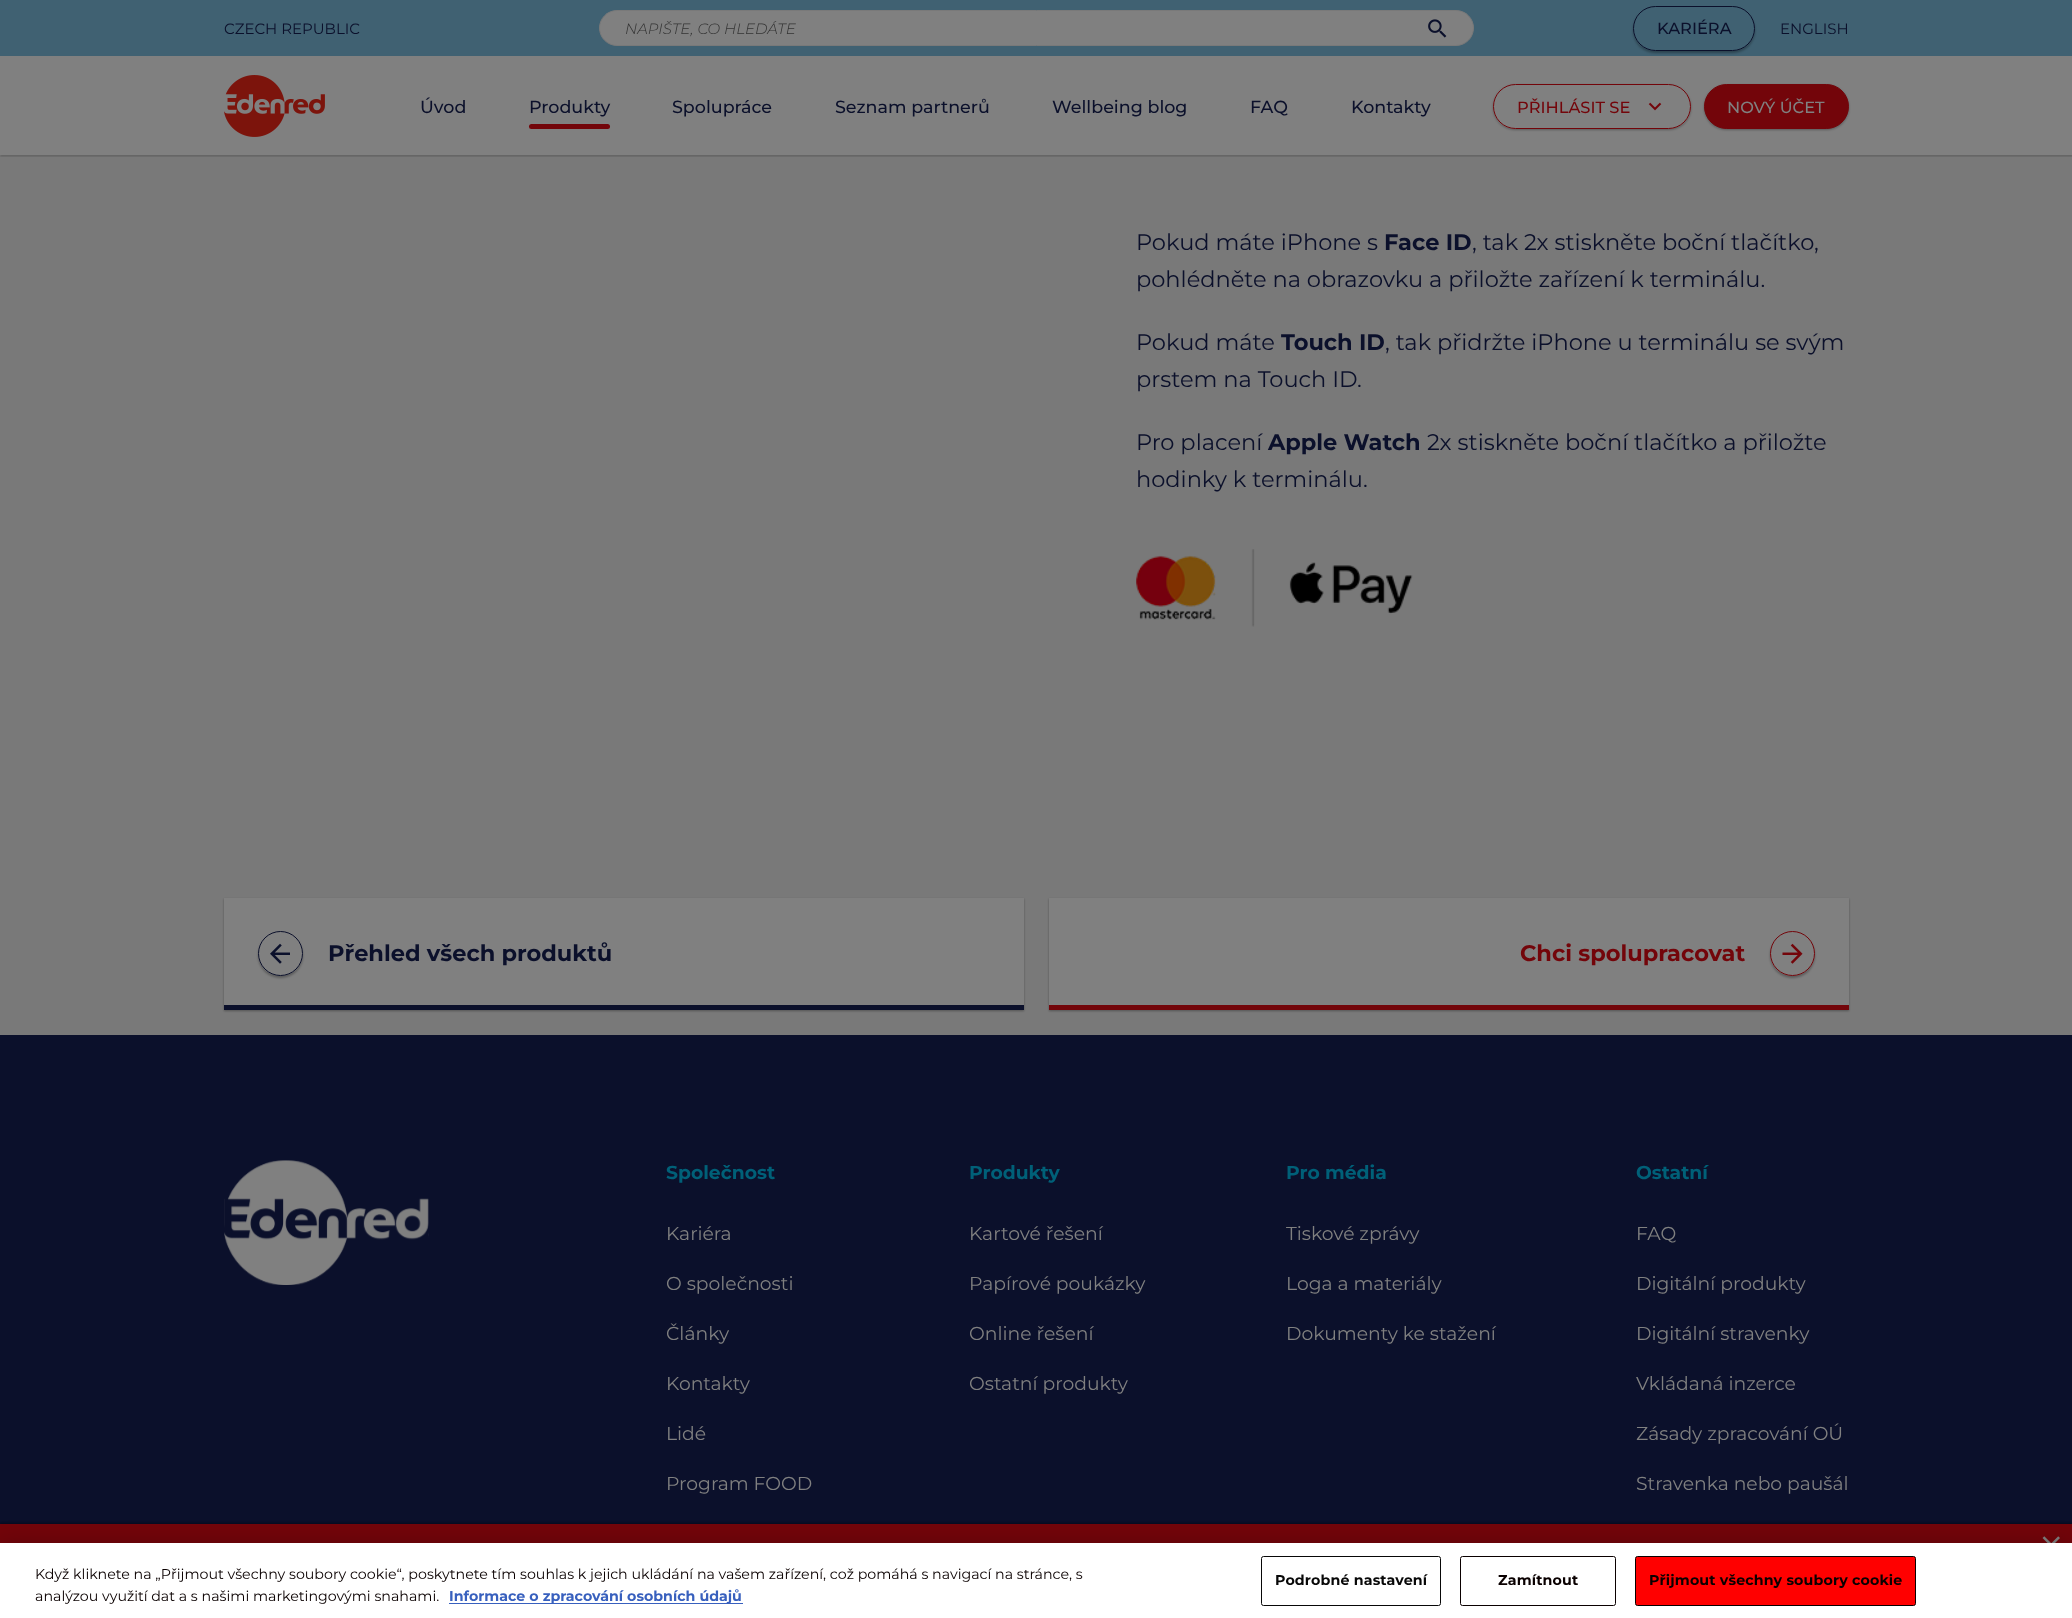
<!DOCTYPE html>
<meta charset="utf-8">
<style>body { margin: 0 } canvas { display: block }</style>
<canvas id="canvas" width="2072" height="1618"></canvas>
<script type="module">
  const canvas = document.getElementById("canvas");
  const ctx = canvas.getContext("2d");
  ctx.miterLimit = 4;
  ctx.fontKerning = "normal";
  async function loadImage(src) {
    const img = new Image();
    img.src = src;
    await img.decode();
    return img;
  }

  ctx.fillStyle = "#0b102b";
  ctx.fillRect(0, 0, 2072, 1618);
  ctx.fillStyle = "#808080";
  ctx.fillRect(0, 56, 2072, 100);
  ctx.fillStyle = "#797979";
  ctx.fillRect(0, 156, 2072, 879);
  ctx.save();
  ctx.beginPath();
  ctx.rect(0, 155, 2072, 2);
  ctx.clip();
  ctx.fillStyle = "rgba(0, 0, 0, 0.3)";
  ctx.filter = "blur(1px)";
  ctx.beginPath();
  ctx.rect(0, 58, 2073, 98);
  ctx.fill();
  ctx.filter = "none";
  ctx.restore();
  ctx.fillStyle = "#406172";
  ctx.fillRect(0, 0, 2072, 56);
  ctx.font = "15px Montserrat";
  ctx.fillStyle = "#0b102b";
  ctx.fillText("CZECH REPUBLIC", 224, 34);
  ctx.save();
  ctx.beginPath();
  ctx.moveTo(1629, 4);
  ctx.lineTo(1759, 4);
  ctx.lineTo(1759, 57);
  ctx.lineTo(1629, 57);
  ctx.closePath();
  ctx.moveTo(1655.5, 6);
  ctx.lineTo(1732.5, 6);
  ctx.bezierCurveTo(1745, 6, 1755, 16, 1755, 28.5);
  ctx.bezierCurveTo(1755, 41, 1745, 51, 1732.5, 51);
  ctx.lineTo(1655.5, 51);
  ctx.bezierCurveTo(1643, 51, 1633, 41, 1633, 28.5);
  ctx.bezierCurveTo(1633, 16, 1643, 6, 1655.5, 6);
  ctx.closePath();
  ctx.clip("evenodd");
  ctx.fillStyle = "rgba(0, 0, 0, 0.3)";
  ctx.filter = "blur(1px)";
  ctx.beginPath();
  ctx.roundRect(1633, 8, 122, 45, 22.5);
  ctx.fill();
  ctx.filter = "none";
  ctx.restore();
  ctx.beginPath();
  ctx.roundRect(1633.5, 6.5, 121, 44, 22);
  ctx.strokeStyle = "#0b102b";
  ctx.stroke();
  ctx.font = "500 16.25px Montserrat";
  ctx.fillText("KARIÉRA", 1657, 34);
  ctx.font = "15px Montserrat";
  ctx.fillText("ENGLISH", 1780, 34);
  ctx.fillStyle = "#808080";
  ctx.beginPath();
  ctx.roundRect(599.5, 10.5, 874, 35, 17.5);
  ctx.fill();
  ctx.strokeStyle = "#797979";
  ctx.stroke();
  ctx.font = "italic 300 15px Montserrat";
  ctx.fillStyle = "#333333";
  ctx.fillText("NAPIŠTE, CO HLEDÁTE", 625, 34);
  ctx.drawImage(await loadImage("img1.png"), 1428, 19, 19, 19);
  ctx.drawImage(await loadImage("img2.png"), 224, 75, 101, 62);
  ctx.font = "500 17.5px Montserrat";
  ctx.fillStyle = "#0b102b";
  ctx.fillText("Úvod", 420, 113);
  ctx.fillText("Produkty", 529, 113);
  ctx.fillStyle = "#73050a";
  ctx.beginPath();
  ctx.roundRect(529, 124, 81, 5, 2.5);
  ctx.fill();
  ctx.fillStyle = "#0b102b";
  ctx.fillText("Spolupráce", 672, 113);
  ctx.fillText("Seznam partnerů", 835, 113);
  ctx.fillText("Wellbeing blog", 1052, 113);
  ctx.fillText("FAQ", 1250, 113);
  ctx.fillText("Kontakty", 1351, 113);
  ctx.save();
  ctx.beginPath();
  ctx.moveTo(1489, 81);
  ctx.lineTo(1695, 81);
  ctx.lineTo(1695, 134);
  ctx.lineTo(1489, 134);
  ctx.closePath();
  ctx.moveTo(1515.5, 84);
  ctx.lineTo(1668.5, 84);
  ctx.bezierCurveTo(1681, 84, 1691, 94, 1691, 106.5);
  ctx.bezierCurveTo(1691, 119, 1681, 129, 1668.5, 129);
  ctx.lineTo(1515.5, 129);
  ctx.bezierCurveTo(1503, 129, 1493, 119, 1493, 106.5);
  ctx.bezierCurveTo(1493, 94, 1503, 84, 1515.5, 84);
  ctx.closePath();
  ctx.clip("evenodd");
  ctx.fillStyle = "rgba(0, 0, 0, 0.3)";
  ctx.filter = "blur(1px)";
  ctx.beginPath();
  ctx.roundRect(1493, 85, 198, 45, 22.5);
  ctx.fill();
  ctx.filter = "none";
  ctx.restore();
  ctx.beginPath();
  ctx.roundRect(1493.5, 84.5, 197, 44, 22);
  ctx.strokeStyle = "#73050a";
  ctx.stroke();
  ctx.font = "500 16.25px Montserrat";
  ctx.fillStyle = "#73050a";
  ctx.fillText("PŘIHLÁSIT SE", 1517, 113);
  ctx.drawImage(await loadImage("img3.png"), 1648, 102, 14, 9);
  ctx.fillStyle = "rgba(0, 0, 0, 0.3)";
  ctx.filter = "blur(1px)";
  ctx.beginPath();
  ctx.roundRect(1704, 85, 145, 45, 22.5);
  ctx.fill();
  ctx.filter = "none";
  ctx.fillStyle = "#73050a";
  ctx.beginPath();
  ctx.roundRect(1704.5, 84.5, 144, 44, 22);
  ctx.fill();
  ctx.stroke();
  ctx.fillStyle = "#808080";
  ctx.fillText("NOVÝ ÚČET", 1727, 113);
  ctx.font = "22.5px Montserrat";
  ctx.fillStyle = "#0b102b";
  ctx.fillText("Pokud máte iPhone s", 1136, 250);
  ctx.font = "bold 22.5px Montserrat";
  ctx.fillText("Face ID", 1384, 250);
  ctx.font = "22.5px Montserrat";
  ctx.fillText(", tak 2x stiskněte boční tlačítko,", 1472, 250);
  ctx.fillText("pohlédněte na obrazovku a přiložte zařízení k terminálu.", 1136, 287);
  ctx.fillText("Pokud máte", 1136, 350);
  ctx.font = "bold 22.5px Montserrat";
  ctx.fillText("Touch ID", 1281, 350);
  ctx.font = "22.5px Montserrat";
  ctx.fillText(", tak přidržte iPhone u terminálu se svým", 1385, 350);
  ctx.fillText("prstem na Touch ID.", 1136, 387);
  ctx.fillText("Pro placení", 1136, 450);
  ctx.font = "bold 22.5px Montserrat";
  ctx.fillText("Apple Watch", 1268, 450);
  ctx.font = "22.5px Montserrat";
  ctx.fillText("2x stiskněte boční tlačítko a přiložte", 1427, 450);
  ctx.fillText("hodinky k terminálu.", 1136, 487);
  ctx.drawImage(await loadImage("img4.png"), 1136, 549, 277, 78);
  ctx.fillStyle = "rgba(0, 0, 0, 0.3)";
  ctx.filter = "blur(1px)";
  ctx.beginPath();
  ctx.rect(224, 899, 800, 112);
  ctx.fill();
  ctx.filter = "none";
  ctx.fillStyle = "#808080";
  ctx.fillRect(224, 898, 800, 107);
  ctx.save();
  ctx.beginPath();
  ctx.moveTo(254, 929);
  ctx.lineTo(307, 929);
  ctx.lineTo(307, 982);
  ctx.lineTo(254, 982);
  ctx.closePath();
  ctx.moveTo(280.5, 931);
  ctx.bezierCurveTo(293, 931, 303, 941, 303, 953.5);
  ctx.bezierCurveTo(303, 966, 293, 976, 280.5, 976);
  ctx.bezierCurveTo(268, 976, 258, 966, 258, 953.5);
  ctx.bezierCurveTo(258, 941, 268, 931, 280.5, 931);
  ctx.closePath();
  ctx.clip("evenodd");
  ctx.fillStyle = "rgba(0, 0, 0, 0.3)";
  ctx.filter = "blur(1px)";
  ctx.beginPath();
  ctx.roundRect(258, 933, 45, 45, 22.5);
  ctx.fill();
  ctx.filter = "none";
  ctx.restore();
  ctx.beginPath();
  ctx.arc(280.5, 953.5, 22, 0, Math.PI * 2);
  ctx.strokeStyle = "#0b102b";
  ctx.stroke();
  ctx.drawImage(await loadImage("img5.png"), 270, 943, 20, 21);
  ctx.font = "bold 22.5px Montserrat";
  ctx.fillStyle = "#0b102b";
  ctx.fillText("Přehled všech produktů", 328, 961);
  ctx.fillRect(224, 1005, 800, 5);
  ctx.fillStyle = "rgba(0, 0, 0, 0.3)";
  ctx.filter = "blur(1px)";
  ctx.beginPath();
  ctx.rect(1049, 899, 800, 112);
  ctx.fill();
  ctx.filter = "none";
  ctx.fillStyle = "#808080";
  ctx.fillRect(1049, 898, 800, 107);
  ctx.fillStyle = "#73050a";
  ctx.fillText("Chci spolupracovat", 1520, 961);
  ctx.save();
  ctx.beginPath();
  ctx.moveTo(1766, 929);
  ctx.lineTo(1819, 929);
  ctx.lineTo(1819, 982);
  ctx.lineTo(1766, 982);
  ctx.closePath();
  ctx.moveTo(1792.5, 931);
  ctx.bezierCurveTo(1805, 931, 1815, 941, 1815, 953.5);
  ctx.bezierCurveTo(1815, 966, 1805, 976, 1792.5, 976);
  ctx.bezierCurveTo(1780, 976, 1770, 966, 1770, 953.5);
  ctx.bezierCurveTo(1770, 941, 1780, 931, 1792.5, 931);
  ctx.closePath();
  ctx.clip("evenodd");
  ctx.fillStyle = "rgba(0, 0, 0, 0.3)";
  ctx.filter = "blur(1px)";
  ctx.beginPath();
  ctx.roundRect(1770, 933, 45, 45, 22.5);
  ctx.fill();
  ctx.filter = "none";
  ctx.restore();
  ctx.beginPath();
  ctx.arc(1792.5, 953.5, 22, 0, Math.PI * 2);
  ctx.strokeStyle = "#73050a";
  ctx.stroke();
  ctx.drawImage(await loadImage("img6.png"), 1782, 943, 21, 21);
  ctx.fillRect(1049, 1005, 800, 5);
  ctx.drawImage(await loadImage("img7.png"), 224, 1160, 205, 125);
  ctx.font = "bold 18.75px Montserrat";
  ctx.fillStyle = "#006078";
  ctx.fillText("Společnost", 666, 1179);
  ctx.font = "18.75px Montserrat";
  ctx.fillStyle = "#808080";
  ctx.fillText("Kariéra", 666, 1240);
  ctx.fillText("O společnosti", 666, 1290);
  ctx.fillText("Články", 666, 1340);
  ctx.fillText("Kontakty", 666, 1390);
  ctx.fillText("Lidé", 666, 1440);
  ctx.fillText("Program FOOD", 666, 1490);
  ctx.font = "bold 18.75px Montserrat";
  ctx.fillStyle = "#006078";
  ctx.fillText("Produkty", 969, 1179);
  ctx.font = "18.75px Montserrat";
  ctx.fillStyle = "#808080";
  ctx.fillText("Kartové řešení", 969, 1240);
  ctx.fillText("Papírové poukázky", 969, 1290);
  ctx.fillText("Online řešení", 969, 1340);
  ctx.fillText("Ostatní produkty", 969, 1390);
  ctx.font = "bold 18.75px Montserrat";
  ctx.fillStyle = "#006078";
  ctx.fillText("Pro média", 1286, 1179);
  ctx.font = "18.75px Montserrat";
  ctx.fillStyle = "#808080";
  ctx.fillText("Tiskové zprávy", 1286, 1240);
  ctx.fillText("Loga a materiály", 1286, 1290);
  ctx.fillText("Dokumenty ke stažení", 1286, 1340);
  ctx.font = "bold 18.75px Montserrat";
  ctx.fillStyle = "#006078";
  ctx.fillText("Ostatní", 1636, 1179);
  ctx.font = "18.75px Montserrat";
  ctx.fillStyle = "#808080";
  ctx.fillText("FAQ", 1636, 1240);
  ctx.fillText("Digitální produkty", 1636, 1290);
  ctx.fillText("Digitální stravenky", 1636, 1340);
  ctx.fillText("Vkládaná inzerce", 1636, 1390);
  ctx.fillText("Zásady zpracování OÚ", 1636, 1440);
  ctx.fillText("Stravenka nebo paušál", 1636, 1490);
  ctx.fillStyle = "rgba(0, 0, 0, 0.3)";
  ctx.filter = "blur(1px)";
  ctx.beginPath();
  ctx.rect(0, 1523, 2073, 95);
  ctx.fill();
  ctx.filter = "none";
  ctx.fillStyle = "#73050a";
  ctx.fillRect(0, 1524, 2072, 19);
  ctx.drawImage(await loadImage("img8.png"), 2042, 1536, 18, 7);
  ctx.fillStyle = "rgba(0, 0, 0, 0.2)";
  ctx.filter = "blur(11px)";
  ctx.beginPath();
  ctx.rect(0, 1543, 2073, 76);
  ctx.fill();
  ctx.filter = "none";
  ctx.fillStyle = "#ffffff";
  ctx.fillRect(0, 1543, 2072, 75);
  ctx.font = "14.23px Montserrat";
  ctx.fillStyle = "#0a0000";
  ctx.fillText("Když kliknete na „Přijmout všechny soubory cookie“, poskytnete tím souhlas k jejich ukládání na vašem zařízení, což pomáhá s navigací na stránce, s", 35, 1579);
  ctx.fillText("analýzou využití dat a s našimi marketingovými snahami.", 35, 1601);
  ctx.fillStyle = "#3860be";
  ctx.fillRect(449, 1603, 294, 1);
  ctx.font = "bold 14.23px Montserrat";
  ctx.fillText("Informace o zpracování osobních údajů", 449, 1601);
  ctx.beginPath();
  ctx.roundRect(1261.5, 1556.5, 179, 49, 2);
  ctx.strokeStyle = "#080808";
  ctx.stroke();
  ctx.letterSpacing = "0.15px";
  ctx.fillStyle = "#080808";
  ctx.fillText("Podrobné nastavení", 1275, 1585);
  ctx.beginPath();
  ctx.roundRect(1460.5, 1556.5, 155, 49, 2);
  ctx.strokeStyle = "#0a0000";
  ctx.stroke();
  ctx.fillStyle = "#0a0000";
  ctx.fillText("Zamítnout", 1498, 1585);
  ctx.fillStyle = "#ff0000";
  ctx.beginPath();
  ctx.roundRect(1635.5, 1556.5, 280, 49, 2);
  ctx.fill();
  ctx.stroke();
  ctx.fillStyle = "#0a0000";
  ctx.fillText("Přijmout všechny soubory cookie", 1649, 1585);
</script>
